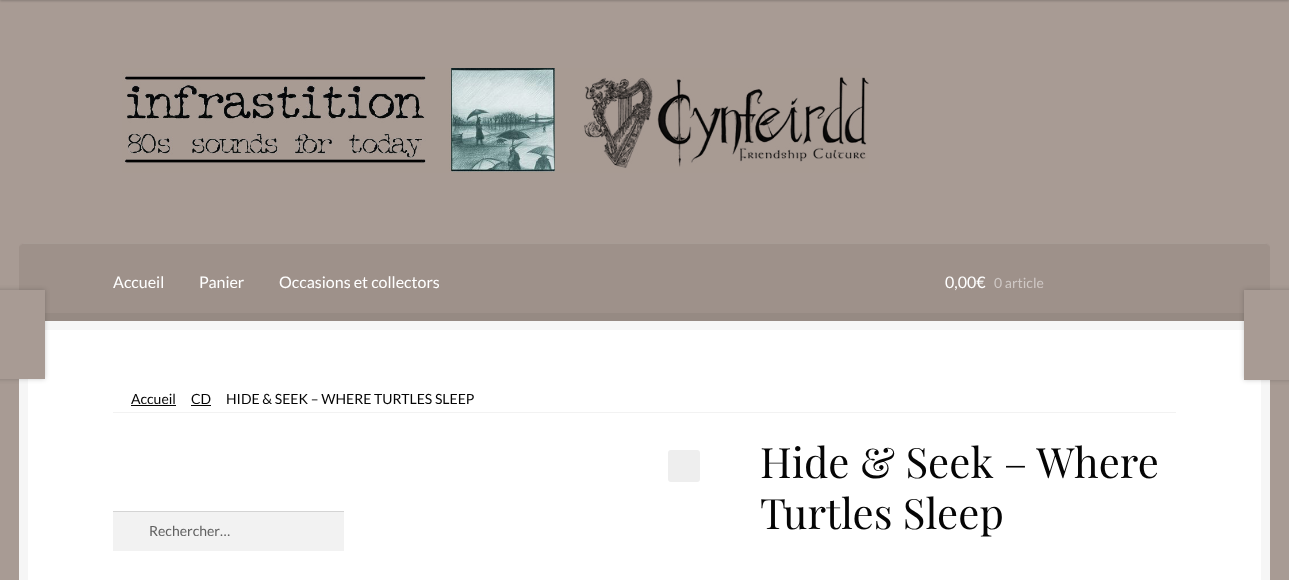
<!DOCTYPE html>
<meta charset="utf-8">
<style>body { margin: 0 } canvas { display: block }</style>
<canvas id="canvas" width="1289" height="580"></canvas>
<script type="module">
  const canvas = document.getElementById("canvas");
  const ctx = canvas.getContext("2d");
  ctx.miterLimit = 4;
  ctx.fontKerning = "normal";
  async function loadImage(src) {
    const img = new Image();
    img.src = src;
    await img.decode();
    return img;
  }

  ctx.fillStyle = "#a89b94";
  ctx.fillRect(0, 0, 1289, 580);
  ctx.fillStyle = "rgba(0, 0, 0, 0.2)";
  ctx.filter = "blur(1px)";
  ctx.beginPath();
  ctx.rect(0, -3, 1289, 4);
  ctx.fill();
  ctx.filter = "none";
  ctx.drawImage(await loadImage("img1.png"), 122, 68, 747, 105);
  ctx.fillStyle = "#9e918a";
  ctx.beginPath();
  ctx.roundRect(19, 243, 1251, 78, [5, 5, 0, 0]);
  ctx.fill();
  ctx.fillStyle = "#968a83";
  ctx.fillRect(45, 313, 1199, 8);
  ctx.fillStyle = "rgba(255, 255, 255, 0.1)";
  ctx.beginPath();
  ctx.moveTo(24, 244);
  ctx.lineTo(1265, 244);
  ctx.bezierCurveTo(1268, 244, 1270, 246, 1270, 249);
  ctx.bezierCurveTo(1270, 246, 1268, 243, 1265, 243);
  ctx.lineTo(24, 243);
  ctx.bezierCurveTo(21, 243, 19, 246, 19, 249);
  ctx.bezierCurveTo(19, 246, 21, 244, 24, 244);
  ctx.closePath();
  ctx.fill();
  ctx.font = "16px Lato";
  ctx.fillStyle = "#ffffff";
  ctx.fillText("Accueil", 113, 288);
  ctx.fillText("Panier", 199, 288);
  ctx.fillText("Occasions et collectors", 279, 288);
  ctx.fillText("0,00€", 945, 288);
  ctx.font = "14px Lato";
  ctx.fillStyle = "#cfc8c5";
  ctx.fillText("0 article", 994, 288);
  ctx.fillStyle = "#ffffff";
  ctx.beginPath();
  ctx.rect(23.5, 325.5, 1242, 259);
  ctx.fill();
  ctx.strokeStyle = "#f6f6f6";
  ctx.lineWidth = 9;
  ctx.stroke();
  ctx.fillStyle = "#f2f2f2";
  ctx.fillRect(113, 412, 1063, 1);
  ctx.fillStyle = "#050505";
  ctx.fillText("Accueil", 131, 404);
  ctx.fillRect(131, 405, 45, 1);
  ctx.fillText("CD", 191, 404);
  ctx.fillRect(191, 405, 20, 1);
  ctx.fillText("HIDE & SEEK – WHERE TURTLES SLEEP", 226, 404);
  ctx.fillStyle = "#f2f2f2";
  ctx.fillRect(113, 512, 231, 39);
  ctx.fillStyle = "#d4d4d4";
  ctx.fillRect(113, 511, 231, 1);
  ctx.fillStyle = "#616161";
  ctx.fillText("Rechercher…", 149, 536);
  ctx.fillStyle = "rgba(0, 0, 0, 0.2)";
  ctx.filter = "blur(2.5px)";
  ctx.beginPath();
  ctx.rect(-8, 290, 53, 89);
  ctx.fill();
  ctx.filter = "none";
  ctx.fillStyle = "#a89b94";
  ctx.fillRect(0, 290, 45, 89);
  ctx.fillStyle = "rgba(0, 0, 0, 0.2)";
  ctx.filter = "blur(2.5px)";
  ctx.beginPath();
  ctx.rect(1244, 290, 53, 90);
  ctx.fill();
  ctx.filter = "none";
  ctx.fillStyle = "#a89b94";
  ctx.fillRect(1244, 290, 45, 90);
  ctx.fillStyle = "#eeeeee";
  ctx.beginPath();
  ctx.roundRect(668, 450, 32, 32, 3);
  ctx.fill();
  ctx.font = "41.9px Playfair Display";
  ctx.fillStyle = "#050505";
  ctx.fillText("Hide & Seek – Where", 760, 478);
  ctx.fillText("Turtles Sleep", 760, 529);
</script>
